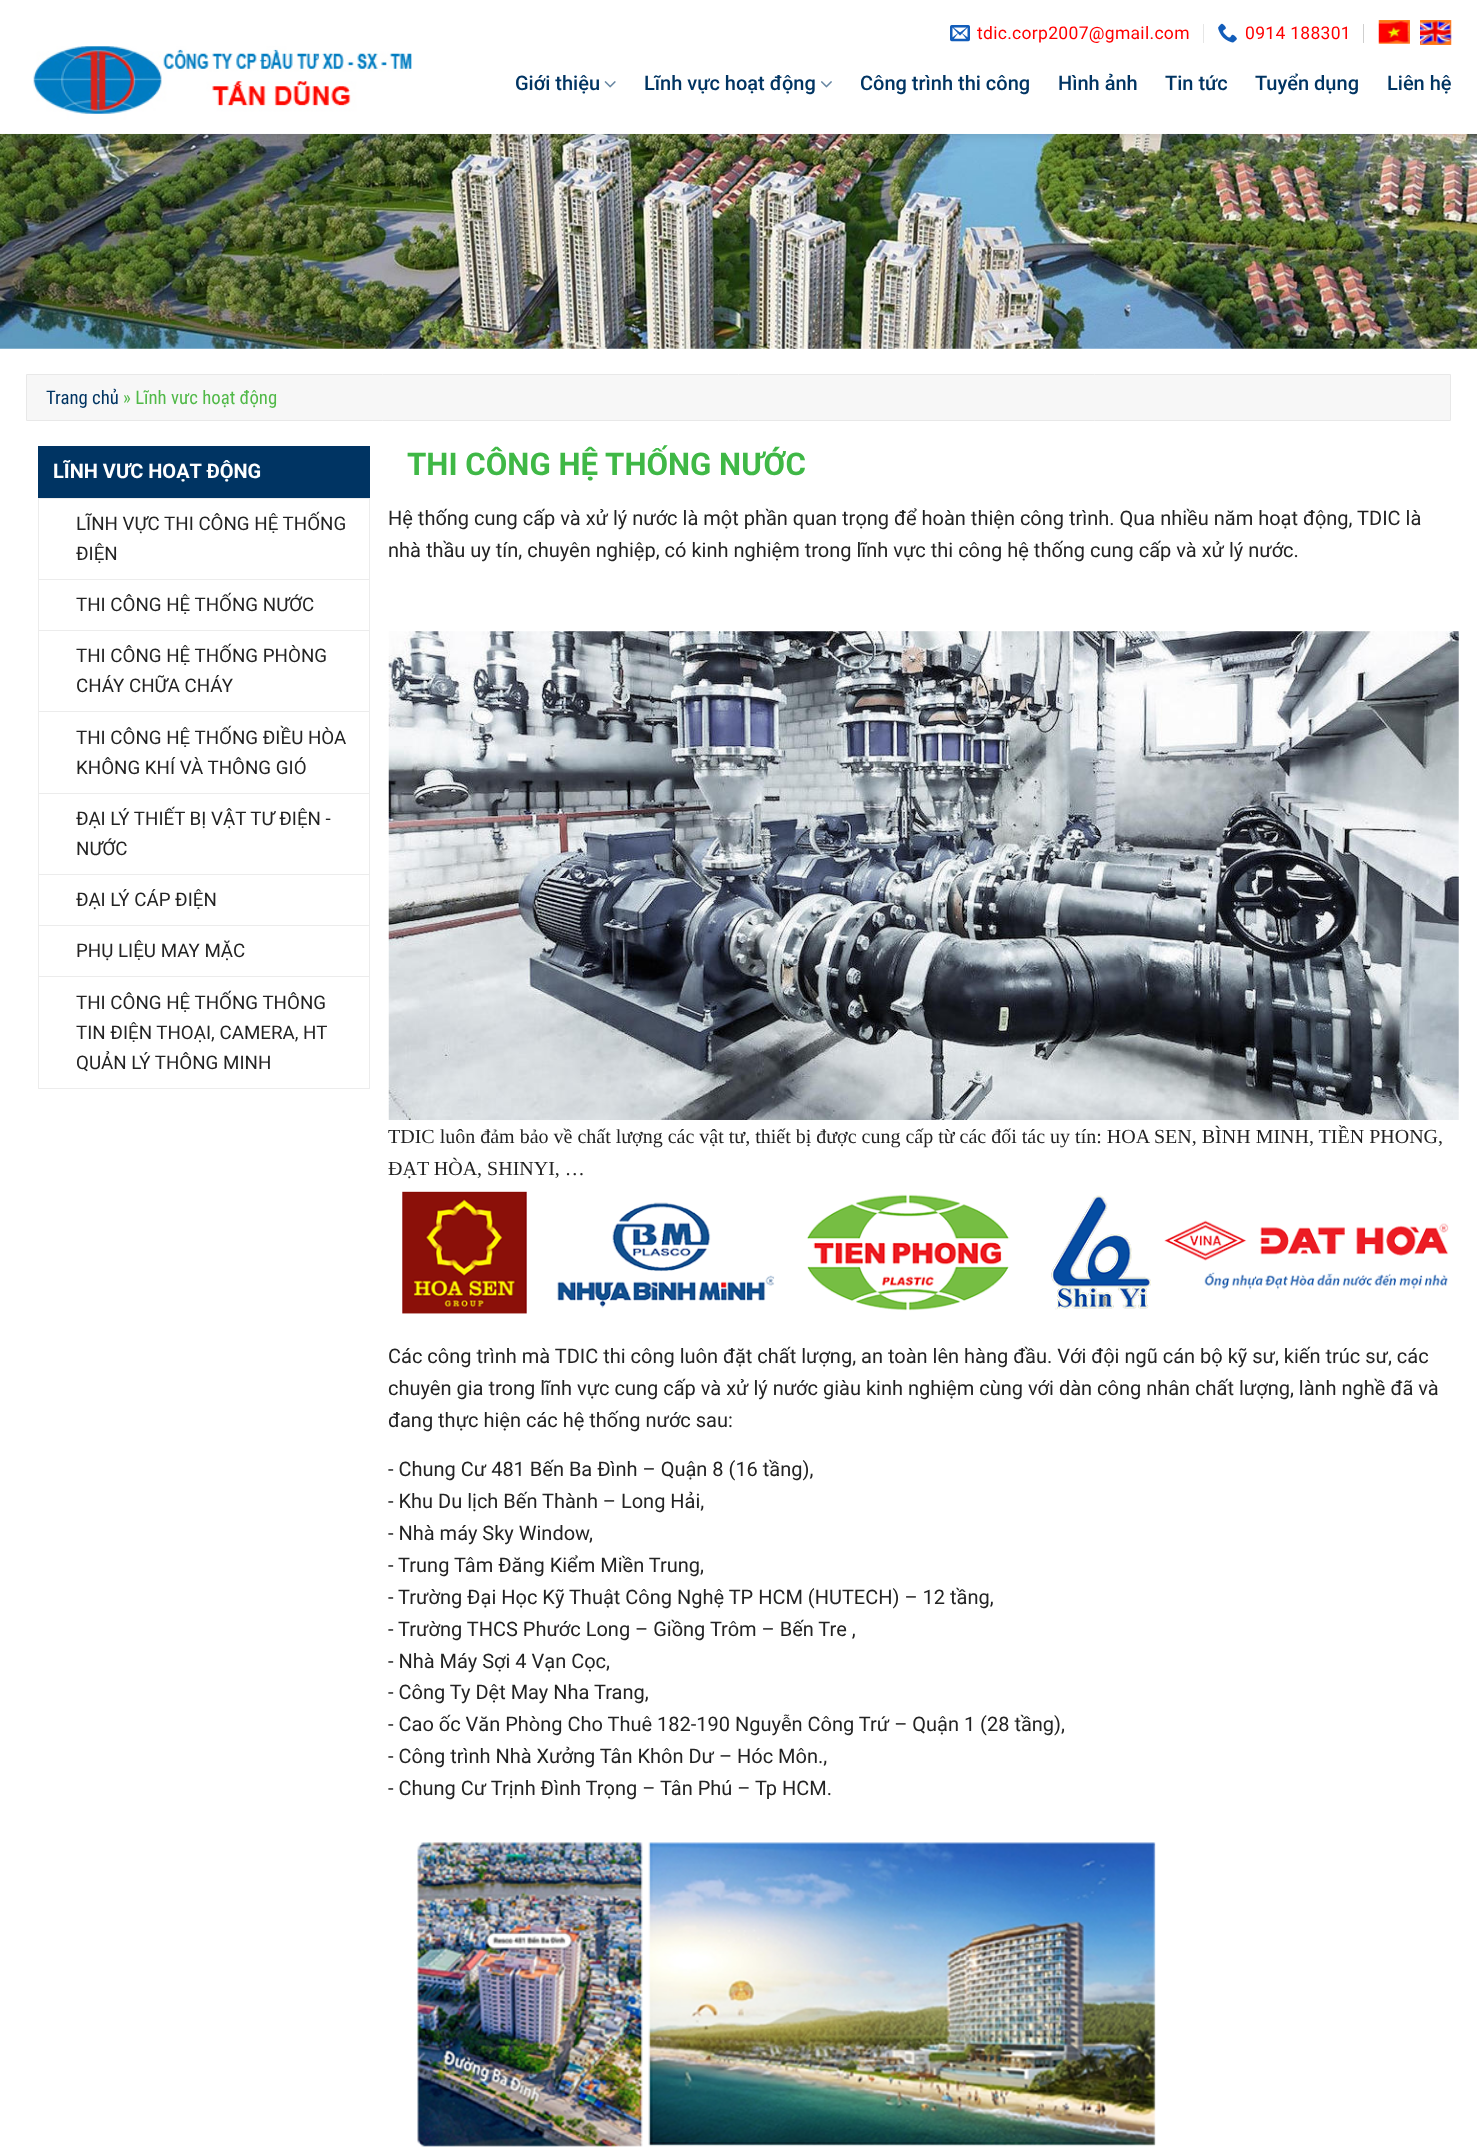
<!DOCTYPE html>
<meta charset="utf-8">
<style>body { margin: 0 } canvas { display: block }</style>
<canvas id="canvas" width="1477" height="2147"></canvas>
<script type="module">
  const canvas = document.getElementById("canvas");
  const ctx = canvas.getContext("2d");
  ctx.miterLimit = 4;
  ctx.fontKerning = "normal";
  async function loadImage(src) {
    const img = new Image();
    img.src = src;
    await img.decode();
    return img;
  }

  ctx.fillStyle = "#ffffff";
  ctx.fillRect(0, 0, 1477, 2147);
  ctx.drawImage(await loadImage("img8.png"), 0, 133, 1477, 216);
  ctx.save();
  ctx.beginPath();
  ctx.moveTo(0, 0);
  ctx.lineTo(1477, 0);
  ctx.lineTo(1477, 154);
  ctx.lineTo(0, 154);
  ctx.closePath();
  ctx.moveTo(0, 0);
  ctx.lineTo(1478, 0);
  ctx.lineTo(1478, 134);
  ctx.lineTo(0, 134);
  ctx.closePath();
  ctx.clip("evenodd");
  ctx.fillStyle = "rgba(0, 0, 0, 0.15)";
  ctx.filter = "blur(6px)";
  ctx.beginPath();
  ctx.rect(1, 1, 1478, 134);
  ctx.fill();
  ctx.filter = "none";
  ctx.restore();
  ctx.drawImage(await loadImage("img1.png"), 950, 25, 20, 17);
  ctx.letterSpacing = "0.3px";
  ctx.font = "17.5px Roboto";
  ctx.fillStyle = "#ff0000";
  ctx.fillText("tdic.corp2007@gmail.com", 977, 39);
  ctx.fillStyle = "#e6e6e6";
  ctx.fillRect(1203, 24, 1, 19);
  ctx.drawImage(await loadImage("img2.png"), 1218, 23, 19, 20);
  ctx.fillStyle = "#ff0000";
  ctx.fillText("0914 188301", 1245, 39);
  ctx.fillStyle = "#cfcfcf";
  ctx.fillRect(1363, 24, 1, 19);
  ctx.drawImage(await loadImage("img3.png"), 1420, 20, 32, 25);
  ctx.drawImage(await loadImage("img4.png"), 1378, 20, 32, 24);
  ctx.drawImage(await loadImage("img5.png"), 33, 46, 379, 74);
  ctx.letterSpacing = "0px";
  ctx.font = "500 20px Roboto";
  ctx.fillStyle = "#003462";
  ctx.fillText("Giới thiệu", 515, 90);
  ctx.drawImage(await loadImage("img6.png"), 604, 81, 12, 7);
  ctx.fillText("Lĩnh vực hoạt động", 644, 90);
  ctx.drawImage(await loadImage("img7.png"), 821, 81, 11, 7);
  ctx.fillText("Công trình thi công", 860, 90);
  ctx.fillText("Hình ảnh", 1058, 90);
  ctx.fillText("Tin tức", 1165, 90);
  ctx.fillText("Tuyển dụng", 1255, 90);
  ctx.fillText("Liên hệ", 1387, 90);
  ctx.fillStyle = "rgba(255, 255, 255, 0.9)";
  ctx.fillRect(0, 133, 1477, 1);
  ctx.fillStyle = "#f7f7f7";
  ctx.beginPath();
  ctx.rect(26.5, 374.5, 1424, 46);
  ctx.fill();
  ctx.strokeStyle = "#e8e8e8";
  ctx.stroke();
  ctx.font = "18.75px Roboto Condensed";
  ctx.fillStyle = "#003462";
  ctx.fillText("Trang chủ", 46, 404);
  ctx.fillStyle = "#51b948";
  ctx.fillText("» Lĩnh vưc hoạt động", 123, 404);
  ctx.fillStyle = "#003463";
  ctx.fillRect(38, 446, 332, 52);
  ctx.font = "bold 20px Roboto";
  ctx.fillStyle = "#ffffff";
  ctx.fillText("LĨNH VƯC HOẠT ĐỘNG", 53, 478);
  ctx.strokeStyle = "#ececec";
  ctx.strokeRect(38.5, 498.5, 331, 590);
  ctx.font = "18.75px Roboto";
  ctx.fillStyle = "#232323";
  ctx.fillText("LĨNH VỰC THI CÔNG HỆ THỐNG", 76, 530);
  ctx.fillText("ĐIỆN", 76, 560);
  ctx.fillStyle = "#ececec";
  ctx.fillRect(39, 579, 330, 1);
  ctx.fillStyle = "#232323";
  ctx.fillText("THI CÔNG HỆ THỐNG NƯỚC", 76, 611);
  ctx.fillStyle = "#ececec";
  ctx.fillRect(39, 630, 330, 1);
  ctx.fillStyle = "#232323";
  ctx.fillText("THI CÔNG HỆ THỐNG PHÒNG", 76, 662);
  ctx.fillText("CHÁY CHỮA CHÁY", 76, 692);
  ctx.fillStyle = "#ececec";
  ctx.fillRect(39, 711, 330, 1);
  ctx.fillStyle = "#232323";
  ctx.fillText("THI CÔNG HỆ THỐNG ĐIỀU HÒA", 76, 744);
  ctx.fillText("KHÔNG KHÍ VÀ THÔNG GIÓ", 76, 774);
  ctx.fillStyle = "#ececec";
  ctx.fillRect(39, 793, 330, 1);
  ctx.fillStyle = "#232323";
  ctx.fillText("ĐẠI LÝ THIẾT BỊ VẬT TƯ ĐIỆN -", 76, 825);
  ctx.fillText("NƯỚC", 76, 855);
  ctx.fillStyle = "#ececec";
  ctx.fillRect(39, 874, 330, 1);
  ctx.fillStyle = "#232323";
  ctx.fillText("ĐẠI LÝ CÁP ĐIỆN", 76, 906);
  ctx.fillStyle = "#ececec";
  ctx.fillRect(39, 925, 330, 1);
  ctx.fillStyle = "#232323";
  ctx.fillText("PHỤ LIỆU MAY MẶC", 76, 957);
  ctx.fillStyle = "#ececec";
  ctx.fillRect(39, 976, 330, 1);
  ctx.fillStyle = "#232323";
  ctx.fillText("THI CÔNG HỆ THỐNG THÔNG", 76, 1009);
  ctx.fillText("TIN ĐIỆN THOẠI, CAMERA, HT", 76, 1039);
  ctx.fillText("QUẢN LÝ THÔNG MINH", 76, 1069);
  ctx.font = "bold 31.25px Roboto";
  ctx.fillStyle = "#3fb846";
  ctx.fillText("THI CÔNG HỆ THỐNG NƯỚC", 407, 475);
  ctx.font = "20px Roboto";
  ctx.fillStyle = "#232323";
  ctx.fillText("Hệ thống cung cấp và xử lý nước là một phần quan trọng để hoàn thiện công trình. Qua nhiều năm hoạt động, TDIC là", 388, 525);
  ctx.fillText("nhà thầu uy tín, chuyên nghiệp, có kinh nghiệm trong lĩnh vực thi công hệ thống cung cấp và xử lý nước.", 388, 557);
  ctx.drawImage(await loadImage("img9.png"), 388, 631, 1071, 489);
  ctx.font = "20px Liberation Serif";
  ctx.fillText("TDIC luôn đảm bảo về chất lượng các vật tư, thiết bị được cung cấp từ các đối tác uy tín: HOA SEN, BÌNH MINH, TIỀN PHONG,", 388, 1143);
  ctx.fillText("ĐẠT HÒA, SHINYI, …", 388, 1175);
  ctx.drawImage(await loadImage("img10.png"), 402, 1191, 1047, 123);
  ctx.font = "20px Roboto";
  ctx.fillText("Các công trình mà TDIC thi công luôn đặt chất lượng, an toàn lên hàng đầu. Với đội ngũ cán bộ kỹ sư, kiến trúc sư, các", 388, 1363);
  ctx.fillText("chuyên gia trong lĩnh vực cung cấp và xử lý nước giàu kinh nghiệm cùng với dàn công nhân chất lượng, lành nghề đã và", 388, 1395);
  ctx.fillText("đang thực hiện các hệ thống nước sau:", 388, 1427);
  ctx.fillText("- Chung Cư 481 Bến Ba Đình – Quận 8 (16 tầng),", 388, 1476);
  ctx.fillText("- Khu Du lịch Bến Thành – Long Hải,", 388, 1508);
  ctx.fillText("- Nhà máy Sky Window,", 388, 1540);
  ctx.fillText("- Trung Tâm Đăng Kiểm Miền Trung,", 388, 1572);
  ctx.fillText("- Trường Đại Học Kỹ Thuật Công Nghệ TP HCM (HUTECH) – 12 tầng,", 388, 1604);
  ctx.fillText("- Trường THCS Phước Long – Giồng Trôm – Bến Tre ,", 388, 1636);
  ctx.fillText("- Nhà Máy Sợi 4 Vạn Cọc,", 388, 1668);
  ctx.fillText("- Công Ty Dệt May Nha Trang,", 388, 1699);
  ctx.fillText("- Cao ốc Văn Phòng Cho Thuê 182-190 Nguyễn Công Trứ – Quận 1 (28 tầng),", 388, 1731);
  ctx.fillText("- Công trình Nhà Xưởng Tân Khôn Dư – Hóc Môn.,", 388, 1763);
  ctx.fillText("- Chung Cư Trịnh Đình Trọng – Tân Phú – Tp HCM.", 388, 1795);
  ctx.drawImage(await loadImage("img11.png"), 417, 1842, 739, 305);
</script>
